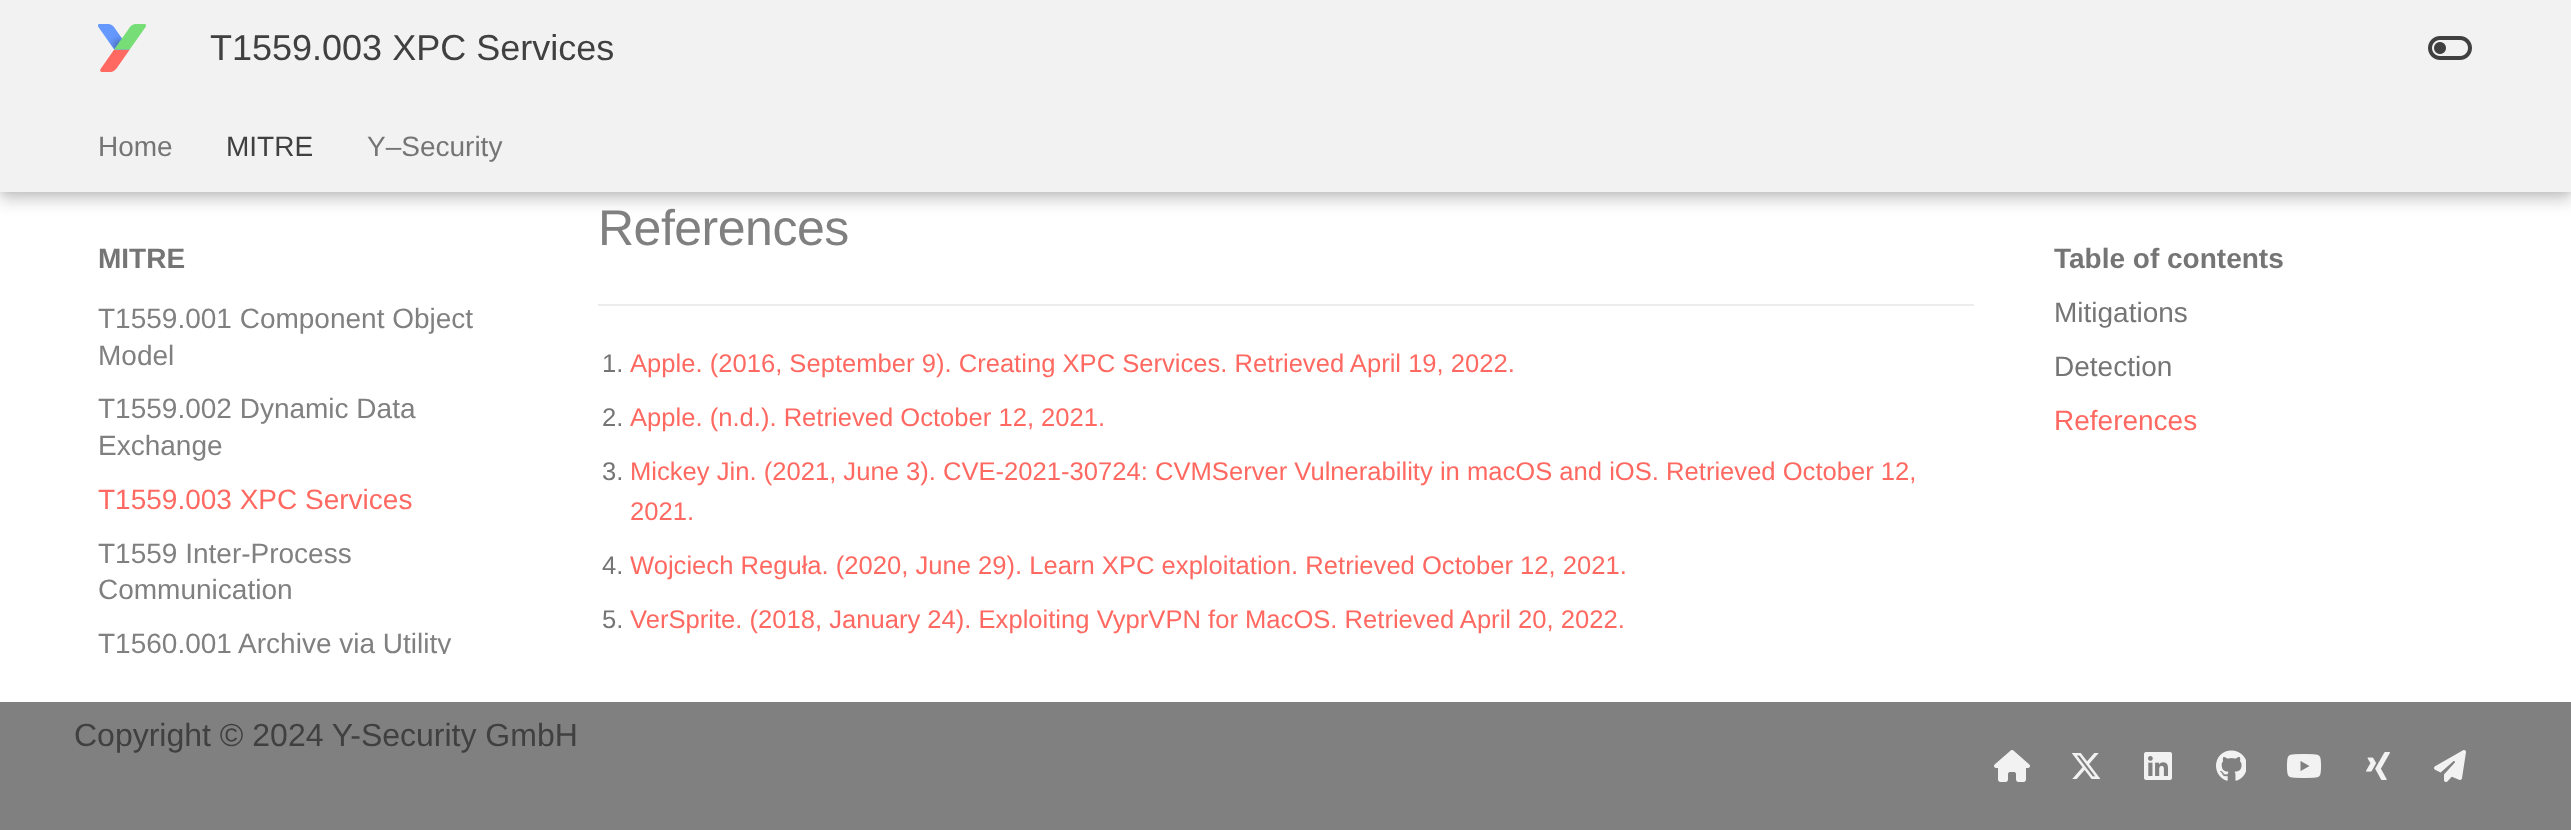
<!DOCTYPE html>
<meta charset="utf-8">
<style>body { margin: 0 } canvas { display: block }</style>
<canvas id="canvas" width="2571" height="830"></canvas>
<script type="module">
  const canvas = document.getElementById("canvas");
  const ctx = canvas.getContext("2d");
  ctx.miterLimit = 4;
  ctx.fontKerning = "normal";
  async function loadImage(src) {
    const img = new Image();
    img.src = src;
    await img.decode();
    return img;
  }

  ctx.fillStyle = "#ffffff";
  ctx.fillRect(0, 0, 2571, 830);
  ctx.fillStyle = "rgba(0, 0, 0, 0.2)";
  ctx.filter = "blur(8px)";
  ctx.beginPath();
  ctx.rect(0, 8, 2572, 192);
  ctx.fill();
  ctx.filter = "none";
  ctx.fillStyle = "rgba(0, 0, 0, 0.1)";
  ctx.filter = "blur(4px)";
  ctx.beginPath();
  ctx.rect(0, 0, 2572, 192);
  ctx.fill();
  ctx.filter = "none";
  ctx.fillStyle = "#f2f2f2";
  ctx.fillRect(0, 0, 2571, 192);
  ctx.drawImage(await loadImage("img1.png"), 98, 24, 48, 48);
  ctx.font = "36px Liberation Sans";
  ctx.fillStyle = "#404040";
  ctx.fillText("T1559.003 XPC Services", 210, 60);
  ctx.drawImage(await loadImage("img2.png"), 2428, 36, 44, 24);
  ctx.font = "28px Liberation Sans";
  ctx.fillStyle = "#757575";
  ctx.fillText("Home", 98, 156);
  ctx.fillStyle = "#404040";
  ctx.fillText("MITRE", 226, 156);
  ctx.fillStyle = "#757575";
  ctx.fillText("Y–Security", 367, 156);
  ctx.font = "bold 28px Liberation Sans";
  ctx.fillText("MITRE", 98, 268);
  ctx.font = "28px Liberation Sans";
  ctx.fillStyle = "#808080";
  ctx.fillText("T1559.001 Component Object", 98, 328);
  ctx.fillText("Model", 98, 365);
  ctx.fillText("T1559.002 Dynamic Data", 98, 418);
  ctx.fillText("Exchange", 98, 455);
  ctx.fillStyle = "#ff6961";
  ctx.fillText("T1559.003 XPC Services", 98, 509);
  ctx.fillStyle = "#808080";
  ctx.fillText("T1559 Inter-Process", 98, 563);
  ctx.fillText("Communication", 98, 599);
  ctx.save();
  ctx.beginPath();
  ctx.rect(98, 624, 412, 30);
  ctx.clip();
  ctx.fillText("T1560.001 Archive via Utility", 98, 653);
  ctx.restore();
  ctx.letterSpacing = "-0.5px";
  ctx.font = "50px Liberation Sans";
  ctx.fillText("References", 598, 245);
  ctx.fillStyle = "#ededed";
  ctx.fillRect(598, 304, 1376, 2);
  ctx.letterSpacing = "0px";
  ctx.font = "25.6px Liberation Sans";
  ctx.fillStyle = "#757575";
  ctx.fillText("1.", 602, 372);
  ctx.fillStyle = "#ff6961";
  ctx.fillText("Apple. (2016, September 9). Creating XPC Services. Retrieved April 19, 2022.", 630, 372);
  ctx.fillStyle = "#757575";
  ctx.fillText("2.", 602, 426);
  ctx.fillStyle = "#ff6961";
  ctx.fillText("Apple. (n.d.). Retrieved October 12, 2021.", 630, 426);
  ctx.fillStyle = "#757575";
  ctx.fillText("3.", 602, 480);
  ctx.fillStyle = "#ff6961";
  ctx.fillText("Mickey Jin. (2021, June 3). CVE-2021-30724: CVMServer Vulnerability in macOS and iOS. Retrieved October 12,", 630, 480);
  ctx.fillText("2021.", 630, 520);
  ctx.fillStyle = "#757575";
  ctx.fillText("4.", 602, 574);
  ctx.fillStyle = "#ff6961";
  ctx.fillText("Wojciech Reguła. (2020, June 29). Learn XPC exploitation. Retrieved October 12, 2021.", 630, 574);
  ctx.fillStyle = "#757575";
  ctx.fillText("5.", 602, 628);
  ctx.fillStyle = "#ff6961";
  ctx.fillText("VerSprite. (2018, January 24). Exploiting VyprVPN for MacOS. Retrieved April 20, 2022.", 630, 628);
  ctx.save();
  ctx.beginPath();
  ctx.rect(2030, 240, 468, 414);
  ctx.clip();
  ctx.beginPath();
  ctx.moveTo(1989, 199);
  ctx.lineTo(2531, 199);
  ctx.lineTo(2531, 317);
  ctx.lineTo(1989, 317);
  ctx.closePath();
  ctx.moveTo(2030, 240);
  ctx.lineTo(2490, 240);
  ctx.lineTo(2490, 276);
  ctx.lineTo(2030, 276);
  ctx.closePath();
  ctx.clip("evenodd");
  ctx.fillStyle = "#ffffff";
  ctx.filter = "blur(8px)";
  ctx.beginPath();
  ctx.rect(2014, 224, 492, 68);
  ctx.fill();
  ctx.filter = "none";
  ctx.restore();
  ctx.font = "bold 28px Liberation Sans";
  ctx.fillStyle = "#757575";
  ctx.fillText("Table of contents", 2054, 268);
  ctx.font = "28px Liberation Sans";
  ctx.fillText("Mitigations", 2054, 322);
  ctx.fillText("Detection", 2054, 376);
  ctx.fillStyle = "#ff6961";
  ctx.fillText("References", 2054, 430);
  ctx.fillStyle = "#808080";
  ctx.fillRect(0, 702, 2571, 128);
  ctx.font = "32px Liberation Sans";
  ctx.fillStyle = "#404040";
  ctx.fillText("Copyright © 2024 Y-Security GmbH", 74, 746);
  ctx.drawImage(await loadImage("img3.png"), 1994, 750, 36, 32);
  ctx.drawImage(await loadImage("img4.png"), 2071, 753, 30, 26);
  ctx.drawImage(await loadImage("img5.png"), 2144, 752, 28, 28);
  ctx.drawImage(await loadImage("img6.png"), 2216, 750, 30, 31);
  ctx.drawImage(await loadImage("img7.png"), 2286, 754, 36, 24);
  ctx.drawImage(await loadImage("img8.png"), 2366, 752, 24, 28);
  ctx.drawImage(await loadImage("img9.png"), 2434, 750, 32, 32);
</script>
